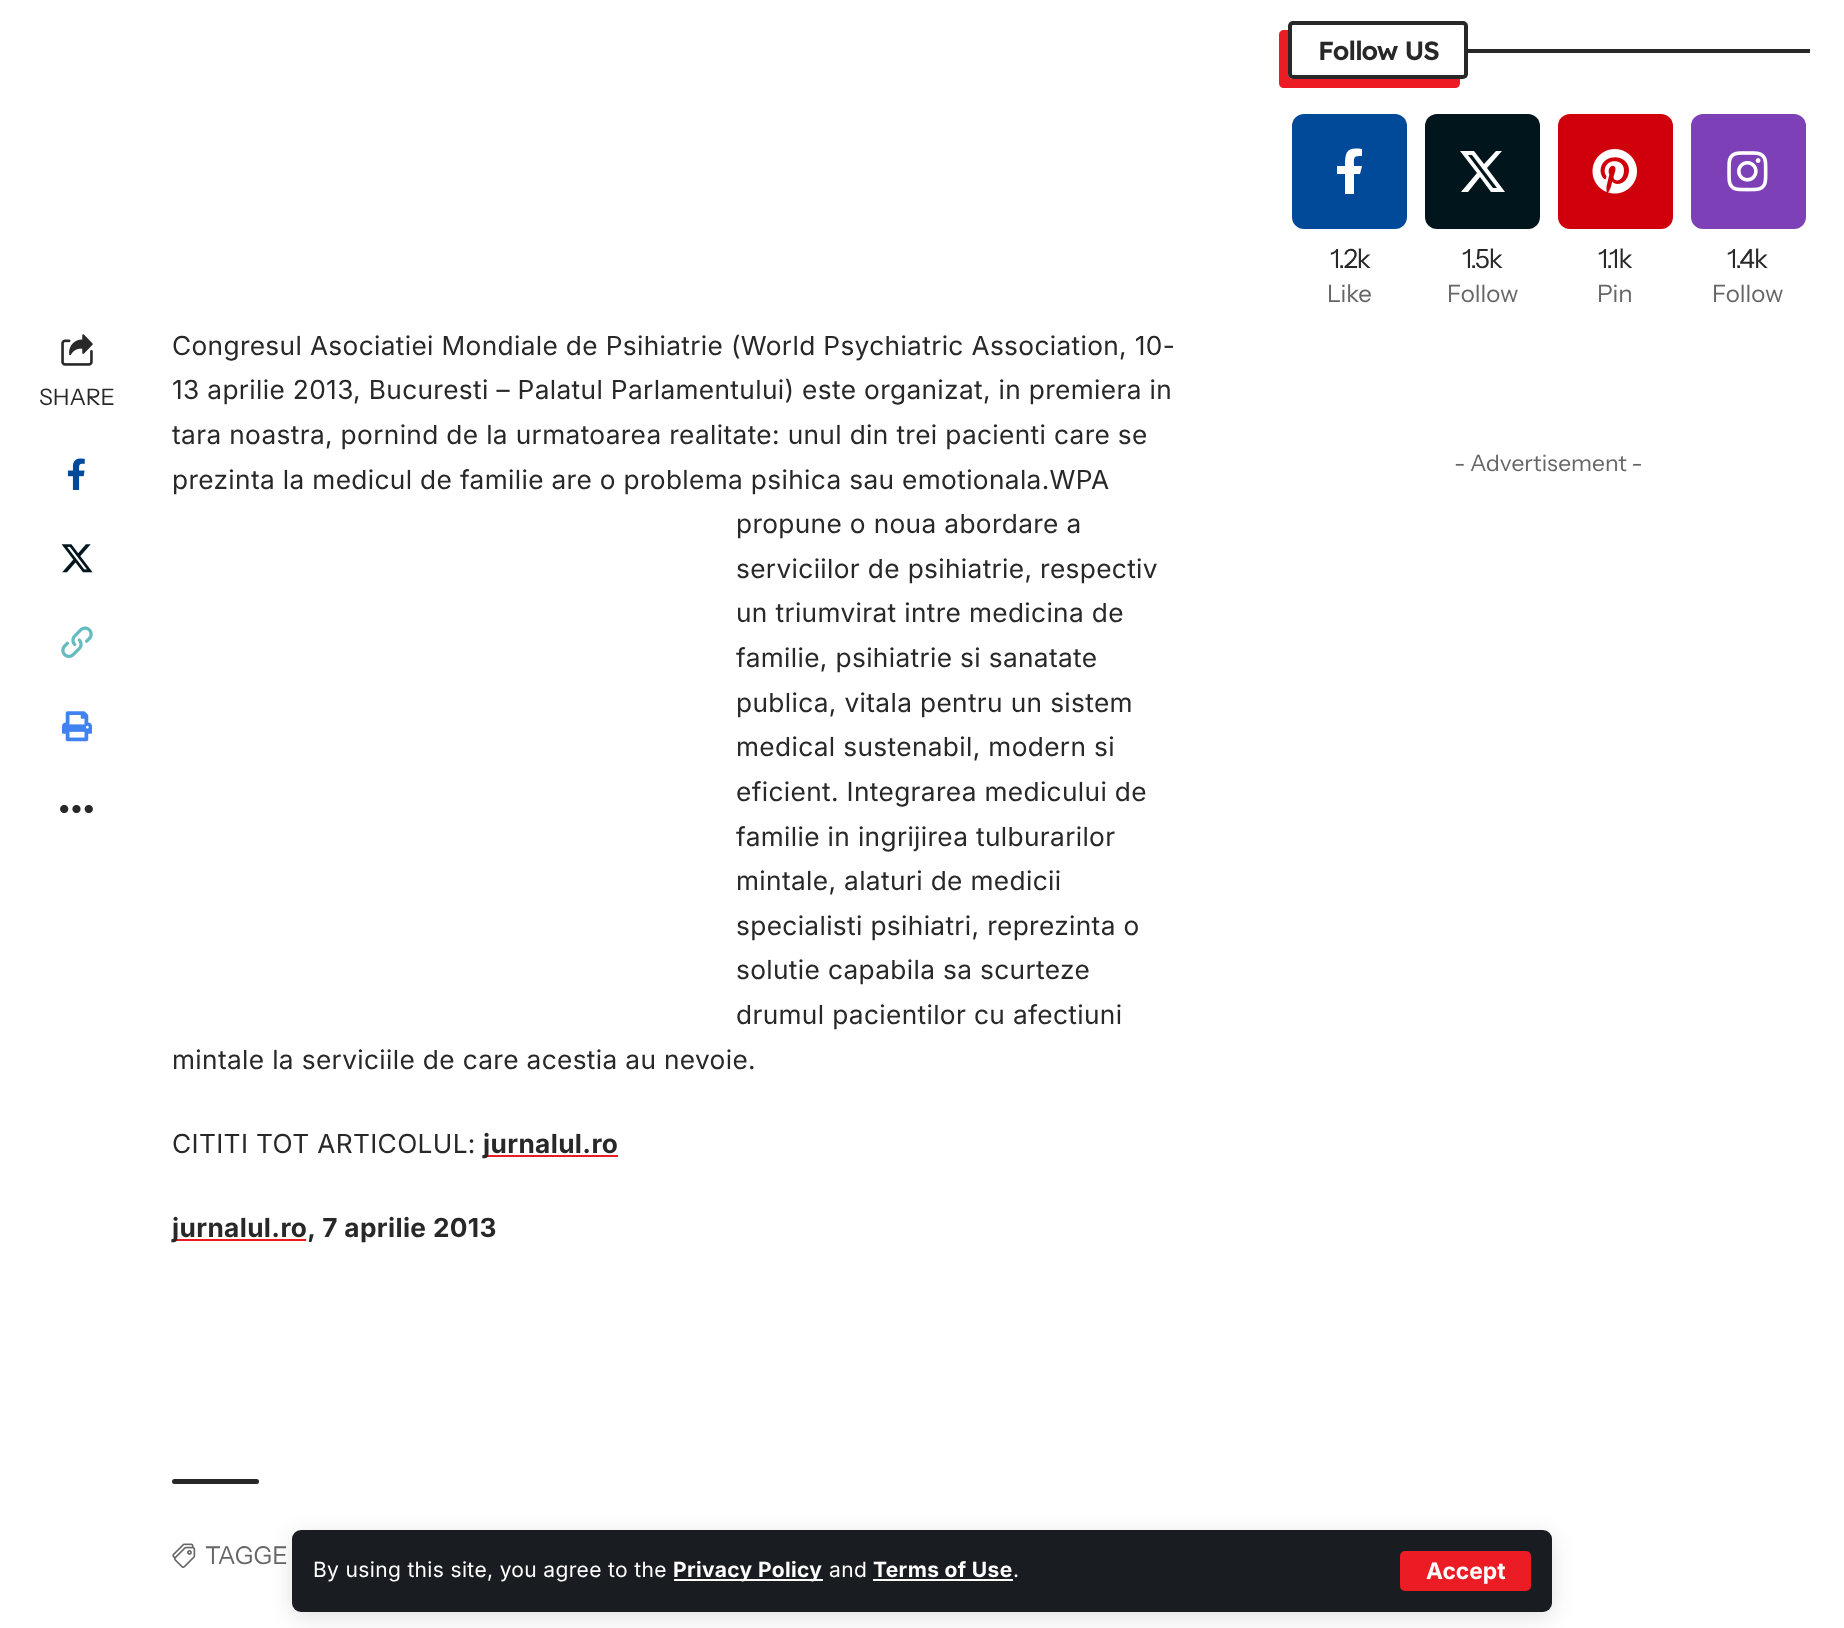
<!DOCTYPE html>
<meta charset="utf-8">
<style>body { margin: 0 } canvas { display: block }</style>
<canvas id="canvas" width="1844" height="1628"></canvas>
<script type="module">
  const canvas = document.getElementById("canvas");
  const ctx = canvas.getContext("2d");
  ctx.miterLimit = 4;
  ctx.fontKerning = "normal";
  async function loadImage(src) {
    const img = new Image();
    img.src = src;
    await img.decode();
    return img;
  }

  ctx.fillStyle = "#ffffff";
  ctx.fillRect(0, 0, 1844, 1628);
  ctx.fillStyle = "#ec1c24";
  ctx.beginPath();
  ctx.moveTo(1284, 30);
  ctx.bezierCurveTo(1281, 30, 1279, 32, 1279, 35);
  ctx.lineTo(1279, 83);
  ctx.bezierCurveTo(1279, 86, 1281, 88, 1284, 88);
  ctx.lineTo(1455, 88);
  ctx.bezierCurveTo(1458, 88, 1460, 86, 1460, 83);
  ctx.lineTo(1460, 79);
  ctx.lineTo(1293, 79);
  ctx.bezierCurveTo(1290, 79, 1288, 76, 1288, 74);
  ctx.lineTo(1288, 30);
  ctx.closePath();
  ctx.fill();
  ctx.beginPath();
  ctx.roundRect(1290, 23, 176, 54, 3);
  ctx.strokeStyle = "#282828";
  ctx.lineWidth = 4;
  ctx.stroke();
  ctx.letterSpacing = "-0.9px";
  ctx.font = "600 26.25px Lexend";
  ctx.fillStyle = "#282828";
  ctx.fillText("Follow US", 1318, 60);
  ctx.fillRect(1468, 49, 342, 4);
  ctx.fillStyle = "#004a99";
  ctx.beginPath();
  ctx.roundRect(1292, 114, 115, 115, 12);
  ctx.fill();
  ctx.fillStyle = "#ffffff";
  ctx.beginPath();
  ctx.moveTo(1360, 174);
  ctx.lineTo(1362, 166);
  ctx.lineTo(1354, 166);
  ctx.bezierCurveTo(1354, 157, 1353, 156, 1362, 156);
  ctx.lineTo(1362, 149);
  ctx.bezierCurveTo(1347, 147, 1345, 151, 1345, 166);
  ctx.lineTo(1337, 166);
  ctx.lineTo(1337, 174);
  ctx.lineTo(1345, 174);
  ctx.lineTo(1345, 194);
  ctx.lineTo(1354, 194);
  ctx.lineTo(1354, 174);
  ctx.closePath();
  ctx.fill();
  ctx.font = "26.25px Instrument Sans";
  ctx.fillStyle = "#282828";
  ctx.fillText("1.2k", 1330, 268);
  ctx.letterSpacing = "0px";
  ctx.font = "24px Instrument Sans";
  ctx.fillStyle = "#666666";
  ctx.fillText("Like", 1327, 302);
  ctx.fillStyle = "#00151c";
  ctx.beginPath();
  ctx.roundRect(1425, 114, 115, 115, 12);
  ctx.fill();
  ctx.fillStyle = "#ffffff";
  ctx.beginPath();
  ctx.moveTo(1496, 151);
  ctx.lineTo(1502, 151);
  ctx.lineTo(1487, 168);
  ctx.lineTo(1505, 192);
  ctx.lineTo(1491, 192);
  ctx.lineTo(1480, 177);
  ctx.lineTo(1468, 192);
  ctx.lineTo(1461, 192);
  ctx.lineTo(1477, 173);
  ctx.lineTo(1460, 151);
  ctx.lineTo(1474, 151);
  ctx.lineTo(1484, 164);
  ctx.closePath();
  ctx.moveTo(1493, 188);
  ctx.lineTo(1497, 188);
  ctx.lineTo(1472, 155);
  ctx.lineTo(1468, 155);
  ctx.closePath();
  ctx.fill();
  ctx.letterSpacing = "-0.9px";
  ctx.font = "26.25px Instrument Sans";
  ctx.fillStyle = "#282828";
  ctx.fillText("1.5k", 1462, 268);
  ctx.letterSpacing = "0px";
  ctx.font = "24px Instrument Sans";
  ctx.fillStyle = "#666666";
  ctx.fillText("Follow", 1447, 302);
  ctx.fillStyle = "#cf000b";
  ctx.beginPath();
  ctx.roundRect(1558, 114, 115, 115, 12);
  ctx.fill();
  ctx.drawImage(await loadImage("img1.png"), 1592, 149, 45, 45);
  ctx.letterSpacing = "-0.9px";
  ctx.font = "26.25px Instrument Sans";
  ctx.fillStyle = "#282828";
  ctx.fillText("1.1k", 1598, 268);
  ctx.letterSpacing = "0px";
  ctx.font = "24px Instrument Sans";
  ctx.fillStyle = "#666666";
  ctx.fillText("Pin", 1597, 302);
  ctx.fillStyle = "#7e40b6";
  ctx.beginPath();
  ctx.roundRect(1691, 114, 115, 115, 12);
  ctx.fill();
  ctx.drawImage(await loadImage("img2.png"), 1727, 151, 41, 41);
  ctx.letterSpacing = "-0.9px";
  ctx.font = "26.25px Instrument Sans";
  ctx.fillStyle = "#282828";
  ctx.fillText("1.4k", 1727, 268);
  ctx.letterSpacing = "0px";
  ctx.font = "24px Instrument Sans";
  ctx.fillStyle = "#666666";
  ctx.fillText("Follow", 1712, 302);
  ctx.font = "22.75px Instrument Sans";
  ctx.fillText("- Advertisement -", 1454, 471);
  ctx.drawImage(await loadImage("img3.png"), 61, 334, 32, 32);
  ctx.fillStyle = "#282828";
  ctx.fillText("SHARE", 39, 405);
  ctx.drawImage(await loadImage("img4.png"), 67, 458, 18, 32);
  ctx.drawImage(await loadImage("img5.png"), 61, 544, 32, 29);
  ctx.drawImage(await loadImage("img6.png"), 61, 626, 32, 32);
  ctx.drawImage(await loadImage("img7.png"), 62, 711, 30, 31);
  ctx.drawImage(await loadImage("img8.png"), 60, 804, 33, 10);
  ctx.letterSpacing = "0.35px";
  ctx.font = "26.25px Inter";
  ctx.fillText("Congresul Asociatiei Mondiale de Psihiatrie (World Psychiatric Association, 10-", 172, 355);
  ctx.fillText("13 aprilie 2013, Bucuresti – Palatul Parlamentului) este organizat, in premiera in", 172, 399);
  ctx.fillText("tara noastra, pornind de la urmatoarea realitate: unul din trei pacienti care se", 172, 444);
  ctx.fillText("prezinta la medicul de familie are o problema psihica sau emotionala.WPA", 172, 489);
  ctx.fillText("propune o noua abordare a", 736, 533);
  ctx.fillText("serviciilor de psihiatrie, respectiv", 736, 578);
  ctx.fillText("un triumvirat intre medicina de", 736, 622);
  ctx.fillText("familie, psihiatrie si sanatate", 736, 667);
  ctx.fillText("publica, vitala pentru un sistem", 736, 712);
  ctx.fillText("medical sustenabil, modern si", 736, 756);
  ctx.fillText("eficient. Integrarea medicului de", 736, 801);
  ctx.fillText("familie in ingrijirea tulburarilor", 736, 846);
  ctx.fillText("mintale, alaturi de medicii", 736, 890);
  ctx.fillText("specialisti psihiatri, reprezinta o", 736, 935);
  ctx.fillText("solutie capabila sa scurteze", 736, 979);
  ctx.fillText("drumul pacientilor cu afectiuni", 736, 1024);
  ctx.fillText("mintale la serviciile de care acestia au nevoie.", 172, 1069);
  ctx.fillText("CITITI TOT ARTICOLUL:", 172, 1153);
  ctx.fillStyle = "#ec1c24";
  ctx.fillRect(483, 1155, 135, 2);
  ctx.font = "bold 26.25px Inter";
  ctx.fillStyle = "#282828";
  ctx.fillText("jurnalul.ro", 483, 1153);
  ctx.fillStyle = "#ec1c24";
  ctx.fillRect(172, 1239, 134, 2);
  ctx.fillStyle = "#282828";
  ctx.fillText("jurnalul.ro, 7 aprilie 2013", 172, 1237);
  ctx.beginPath();
  ctx.roundRect(172, 1479, 87, 5, 2.5);
  ctx.fill();
  ctx.drawImage(await loadImage("img9.png"), 172, 1543, 24, 25);
  ctx.letterSpacing = "0px";
  ctx.font = "24.5px Instrument Sans";
  ctx.fillStyle = "#666666";
  ctx.fillText("TAGGE", 205, 1564);
  ctx.fillStyle = "rgba(0, 0, 0, 0.12)";
  ctx.filter = "blur(10.5px)";
  ctx.beginPath();
  ctx.roundRect(292, 1535, 1260, 82, 9);
  ctx.fill();
  ctx.filter = "none";
  ctx.fillStyle = "#191c20";
  ctx.beginPath();
  ctx.roundRect(292, 1530, 1260, 82, 9);
  ctx.fill();
  ctx.letterSpacing = "0.35px";
  ctx.font = "21px Inter";
  ctx.fillStyle = "#ffffff";
  ctx.fillText("By using this site, you agree to the", 313, 1577);
  ctx.fillRect(674, 1579, 149, 2);
  ctx.font = "bold 21px Inter";
  ctx.fillText("Privacy Policy", 673, 1577);
  ctx.font = "21px Inter";
  ctx.fillText("and", 829, 1577);
  ctx.font = "bold 21px Inter";
  ctx.fillText("Terms of Use", 873, 1577);
  ctx.fillRect(873, 1579, 140, 2);
  ctx.font = "21px Inter";
  ctx.fillText(".", 1013, 1577);
  ctx.fillStyle = "#ec1c24";
  ctx.beginPath();
  ctx.roundRect(1400, 1551, 131, 40, 5);
  ctx.fill();
  ctx.letterSpacing = "0px";
  ctx.font = "bold 22.75px Inter";
  ctx.fillStyle = "#ffffff";
  ctx.fillText("Accept", 1426, 1579);
</script>
